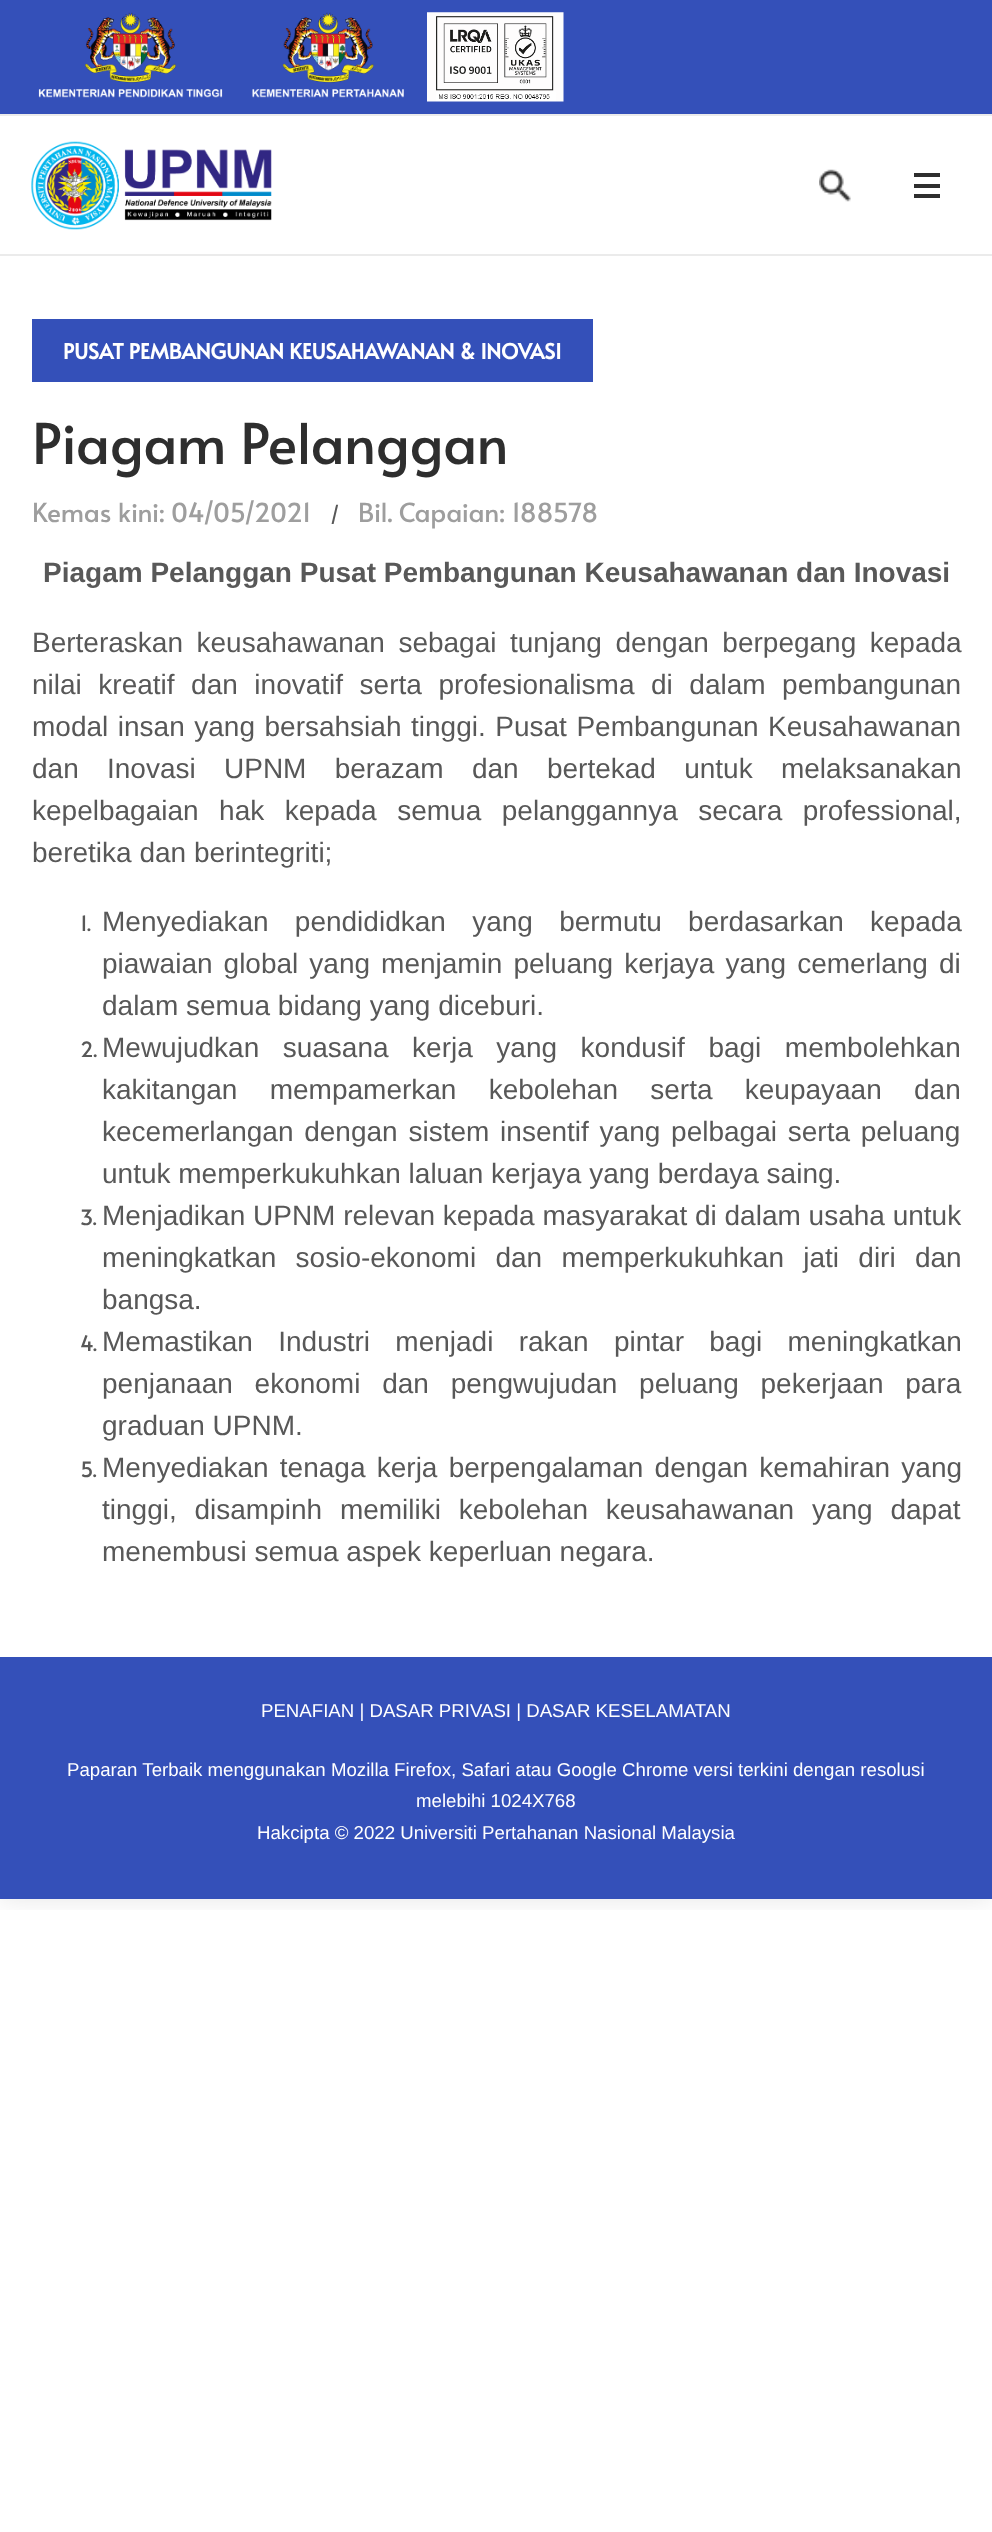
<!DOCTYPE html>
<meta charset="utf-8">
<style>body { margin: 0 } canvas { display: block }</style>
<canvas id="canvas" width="992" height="2532"></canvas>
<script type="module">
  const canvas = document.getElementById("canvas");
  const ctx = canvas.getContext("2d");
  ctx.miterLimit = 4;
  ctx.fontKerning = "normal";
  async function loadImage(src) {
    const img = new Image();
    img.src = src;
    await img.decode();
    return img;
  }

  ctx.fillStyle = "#ffffff";
  ctx.fillRect(0, 0, 992, 2532);
  ctx.save();
  ctx.beginPath();
  ctx.rect(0, 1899, 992, 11);
  ctx.clip();
  ctx.fillStyle = "rgba(0, 0, 0, 0.1)";
  ctx.filter = "blur(13px)";
  ctx.beginPath();
  ctx.rect(0, 0, 992, 1899);
  ctx.fill();
  ctx.filter = "none";
  ctx.restore();
  ctx.fillStyle = "#ebebeb";
  ctx.fillRect(0, 254, 992, 2);
  ctx.fillStyle = "#3450b9";
  ctx.fillRect(0, 0, 992, 114);
  ctx.fillStyle = "#ebebeb";
  ctx.fillRect(0, 114, 992, 2);
  ctx.drawImage(await loadImage("img1.png"), 38, 12, 185, 86);
  ctx.drawImage(await loadImage("img2.png"), 252, 12, 152, 86);
  ctx.drawImage(await loadImage("img3.png"), 427, 12, 137, 90);
  ctx.drawImage(await loadImage("img4.png"), 31, 141, 241, 89);
  ctx.drawImage(await loadImage("img5.png"), 819, 169, 32, 33);
  ctx.fillStyle = "#2e2e2e";
  ctx.fillRect(914, 184, 26, 4);
  ctx.fillRect(914, 173, 26, 4);
  ctx.fillRect(914, 194, 26, 4);
  ctx.fillStyle = "#3450b9";
  ctx.fillRect(32, 319, 561, 63);
  ctx.font = "bold 21px Alata";
  ctx.fillStyle = "#ffffff";
  ctx.fillText("PUSAT PEMBANGUNAN KEUSAHAWANAN & INOVASI", 63, 359);
  ctx.font = "56px Alata";
  ctx.fillStyle = "#2e2e2e";
  ctx.fillText("Piagam Pelanggan", 32, 464);
  ctx.font = "26.25px Alata";
  ctx.fillStyle = "#9e9e9e";
  ctx.fillText("Kemas kini: 04/05/2021", 32, 522);
  ctx.font = "21px Alata";
  ctx.fillStyle = "#585858";
  ctx.fillText("/", 330, 522);
  ctx.font = "26.25px Alata";
  ctx.fillStyle = "#9e9e9e";
  ctx.fillText("Bil. Capaian: 188578", 358, 522);
  ctx.font = "bold 28px Liberation Sans";
  ctx.fillStyle = "#585858";
  ctx.fillText("Piagam Pelanggan Pusat Pembangunan Keusahawanan dan Inovasi", 43, 582);
  ctx.wordSpacing = "5.75px";
  ctx.font = "28px Liberation Sans";
  ctx.fillText("Berteraskan keusahawanan sebagai tunjang dengan berpegang kepada", 32, 652);
  ctx.wordSpacing = "8.75px";
  ctx.fillText("nilai kreatif dan inovatif serta profesionalisma di dalam pembangunan", 32, 694);
  ctx.wordSpacing = "1.75px";
  ctx.fillText("modal insan yang bersahsiah tinggi. Pusat Pembangunan Keusahawanan", 32, 736);
  ctx.wordSpacing = "20.5px";
  ctx.fillText("dan Inovasi UPNM berazam dan bertekad untuk melaksanakan", 32, 778);
  ctx.wordSpacing = "12.75px";
  ctx.fillText("kepelbagaian hak kepada semua pelanggannya secara professional,", 32, 820);
  ctx.wordSpacing = "0px";
  ctx.fillText("beretika dan berintegriti;", 32, 862);
  ctx.font = "21px Alata";
  ctx.fillText("1.", 80, 931);
  ctx.wordSpacing = "18.5px";
  ctx.font = "28px Liberation Sans";
  ctx.fillText("Menyediakan pendididkan yang bermutu berdasarkan kepada", 102, 931);
  ctx.wordSpacing = "3.25px";
  ctx.fillText("piawaian global yang menjamin peluang kerjaya yang cemerlang di", 102, 973);
  ctx.wordSpacing = "0px";
  ctx.fillText("dalam semua bidang yang diceburi.", 102, 1015);
  ctx.font = "21px Alata";
  ctx.fillText("2.", 80, 1057);
  ctx.wordSpacing = "15.75px";
  ctx.font = "28px Liberation Sans";
  ctx.fillText("Mewujudkan suasana kerja yang kondusif bagi membolehkan", 102, 1057);
  ctx.wordSpacing = "24.5px";
  ctx.fillText("kakitangan mempamerkan kebolehan serta keupayaan dan", 102, 1099);
  ctx.wordSpacing = "3px";
  ctx.fillText("kecemerlangan dengan sistem insentif yang pelbagai serta peluang", 102, 1141);
  ctx.wordSpacing = "0px";
  ctx.fillText("untuk memperkukuhkan laluan kerjaya yang berdaya saing.", 102, 1183);
  ctx.font = "21px Alata";
  ctx.fillText("3.", 80, 1225);
  ctx.font = "28px Liberation Sans";
  ctx.fillText("Menjadikan UPNM relevan kepada masyarakat di dalam usaha untuk", 102, 1225);
  ctx.wordSpacing = "11.5px";
  ctx.fillText("meningkatkan sosio-ekonomi dan memperkukuhkan jati diri dan", 102, 1267);
  ctx.wordSpacing = "0px";
  ctx.fillText("bangsa.", 102, 1309);
  ctx.font = "21px Alata";
  ctx.fillText("4.", 80, 1351);
  ctx.wordSpacing = "17.5px";
  ctx.font = "28px Liberation Sans";
  ctx.fillText("Memastikan Industri menjadi rakan pintar bagi meningkatkan", 102, 1351);
  ctx.wordSpacing = "14px";
  ctx.fillText("penjanaan ekonomi dan pengwujudan peluang pekerjaan para", 102, 1393);
  ctx.wordSpacing = "0px";
  ctx.fillText("graduan UPNM.", 102, 1435);
  ctx.font = "21px Alata";
  ctx.fillText("5.", 80, 1477);
  ctx.wordSpacing = "3.5px";
  ctx.font = "28px Liberation Sans";
  ctx.fillText("Menyediakan tenaga kerja berpengalaman dengan kemahiran yang", 102, 1477);
  ctx.wordSpacing = "10px";
  ctx.fillText("tinggi, disampinh memiliki kebolehan keusahawanan yang dapat", 102, 1519);
  ctx.wordSpacing = "0px";
  ctx.fillText("menembusi semua aspek keperluan negara.", 102, 1561);
  ctx.fillStyle = "#3450b9";
  ctx.fillRect(0, 1657, 992, 242);
  ctx.font = "18.65px Liberation Sans";
  ctx.fillStyle = "#ffffff";
  ctx.fillText("PENAFIAN | DASAR PRIVASI | DASAR KESELAMATAN", 261, 1717);
  ctx.fillText("Paparan Terbaik menggunakan Mozilla Firefox, Safari atau Google Chrome versi terkini dengan resolusi", 67, 1776);
  ctx.fillText("melebihi 1024X768", 416, 1807);
  ctx.fillText("Hakcipta © 2022 Universiti Pertahanan Nasional Malaysia", 257, 1839);
</script>
